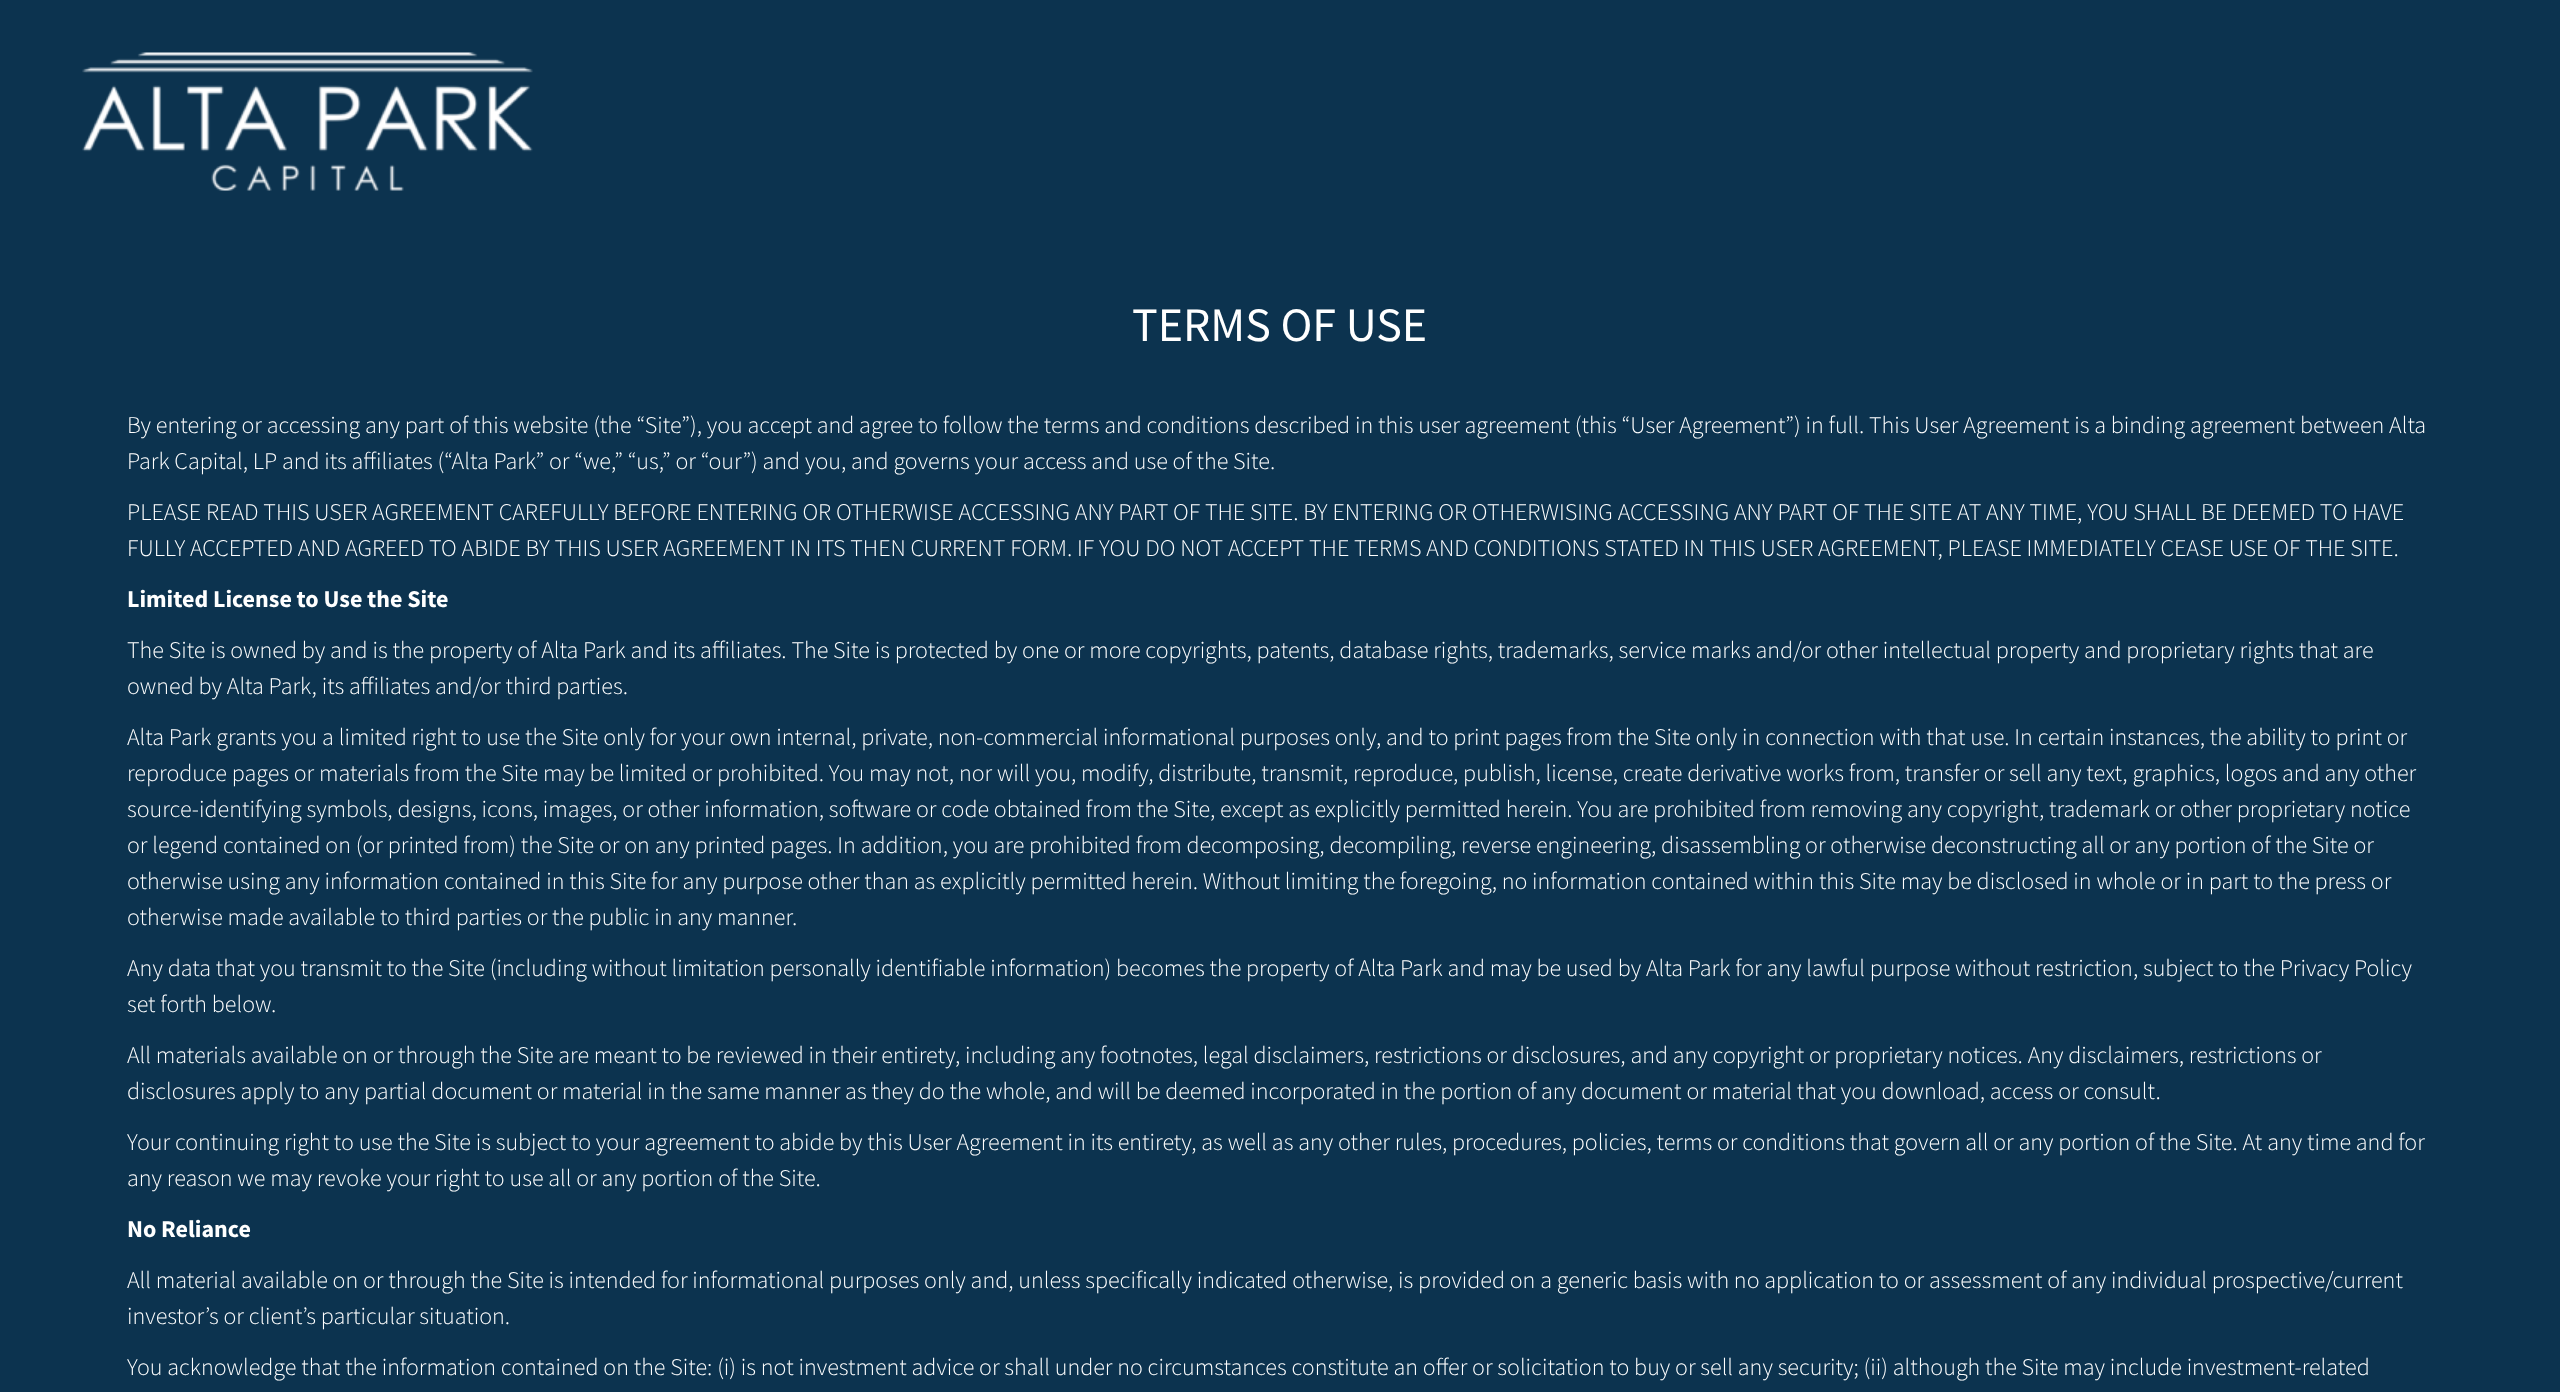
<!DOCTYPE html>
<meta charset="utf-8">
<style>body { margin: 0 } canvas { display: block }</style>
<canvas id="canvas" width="2560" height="1392"></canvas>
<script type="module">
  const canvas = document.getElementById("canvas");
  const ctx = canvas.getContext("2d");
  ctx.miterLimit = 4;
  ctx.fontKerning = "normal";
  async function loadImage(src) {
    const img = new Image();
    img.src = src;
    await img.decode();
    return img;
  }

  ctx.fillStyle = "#0c334f";
  ctx.fillRect(0, 0, 2560, 1392);
  ctx.drawImage(await loadImage("img1.png"), 82, 52, 451, 139);
  ctx.font = "48px Source Sans Pro";
  ctx.fillStyle = "#ffffff";
  ctx.fillText("TERMS OF USE", 1132, 341);
  ctx.font = "300 24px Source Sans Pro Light";
  ctx.fillText("By entering or accessing any part of this website (the “Site”), you accept and agree to follow the terms and conditions described in this user agreement (this “User Agreement”) in full. This User Agreement is a binding agreement between Alta", 127, 433);
  ctx.fillText("Park Capital, LP and its affiliates (“Alta Park” or “we,” “us,” or “our”) and you, and governs your access and use of the Site.", 127, 469);
  ctx.fillText("PLEASE READ THIS USER AGREEMENT CAREFULLY BEFORE ENTERING OR OTHERWISE ACCESSING ANY PART OF THE SITE. BY ENTERING OR OTHERWISING ACCESSING ANY PART OF THE SITE AT ANY TIME, YOU SHALL BE DEEMED TO HAVE", 127, 520);
  ctx.fillText("FULLY ACCEPTED AND AGREED TO ABIDE BY THIS USER AGREEMENT IN ITS THEN CURRENT FORM. IF YOU DO NOT ACCEPT THE TERMS AND CONDITIONS STATED IN THIS USER AGREEMENT, PLEASE IMMEDIATELY CEASE USE OF THE SITE.", 127, 556);
  ctx.font = "bold 24px Source Sans Pro";
  ctx.fillText("Limited License to Use the Site", 127, 607);
  ctx.font = "300 24px Source Sans Pro Light";
  ctx.fillText("The Site is owned by and is the property of Alta Park and its affiliates. The Site is protected by one or more copyrights, patents, database rights, trademarks, service marks and/or other intellectual property and proprietary rights that are", 127, 658);
  ctx.fillText("owned by Alta Park, its affiliates and/or third parties.", 127, 694);
  ctx.fillText("Alta Park grants you a limited right to use the Site only for your own internal, private, non-commercial informational purposes only, and to print pages from the Site only in connection with that use. In certain instances, the ability to print or", 127, 745);
  ctx.fillText("reproduce pages or materials from the Site may be limited or prohibited. You may not, nor will you, modify, distribute, transmit, reproduce, publish, license, create derivative works from, transfer or sell any text, graphics, logos and any other", 127, 781);
  ctx.fillText("source-identifying symbols, designs, icons, images, or other information, software or code obtained from the Site, except as explicitly permitted herein. You are prohibited from removing any copyright, trademark or other proprietary notice", 127, 817);
  ctx.fillText("or legend contained on (or printed from) the Site or on any printed pages. In addition, you are prohibited from decomposing, decompiling, reverse engineering, disassembling or otherwise deconstructing all or any portion of the Site or", 127, 853);
  ctx.fillText("otherwise using any information contained in this Site for any purpose other than as explicitly permitted herein. Without limiting the foregoing, no information contained within this Site may be disclosed in whole or in part to the press or", 127, 889);
  ctx.fillText("otherwise made available to third parties or the public in any manner.", 127, 925);
  ctx.fillText("Any data that you transmit to the Site (including without limitation personally identifiable information) becomes the property of Alta Park and may be used by Alta Park for any lawful purpose without restriction, subject to the Privacy Policy", 127, 976);
  ctx.fillText("set forth below.", 127, 1012);
  ctx.fillText("All materials available on or through the Site are meant to be reviewed in their entirety, including any footnotes, legal disclaimers, restrictions or disclosures, and any copyright or proprietary notices. Any disclaimers, restrictions or", 127, 1063);
  ctx.fillText("disclosures apply to any partial document or material in the same manner as they do the whole, and will be deemed incorporated in the portion of any document or material that you download, access or consult.", 127, 1099);
  ctx.fillText("Your continuing right to use the Site is subject to your agreement to abide by this User Agreement in its entirety, as well as any other rules, procedures, policies, terms or conditions that govern all or any portion of the Site. At any time and for", 127, 1150);
  ctx.fillText("any reason we may revoke your right to use all or any portion of the Site.", 127, 1186);
  ctx.font = "bold 24px Source Sans Pro";
  ctx.fillText("No Reliance", 127, 1237);
  ctx.font = "300 24px Source Sans Pro Light";
  ctx.fillText("All material available on or through the Site is intended for informational purposes only and, unless specifically indicated otherwise, is provided on a generic basis with no application to or assessment of any individual prospective/current", 127, 1288);
  ctx.fillText("investor’s or client’s particular situation.", 127, 1324);
  ctx.fillText("You acknowledge that the information contained on the Site: (i) is not investment advice or shall under no circumstances constitute an offer or solicitation to buy or sell any security; (ii) although the Site may include investment-related", 127, 1375);
</script>
